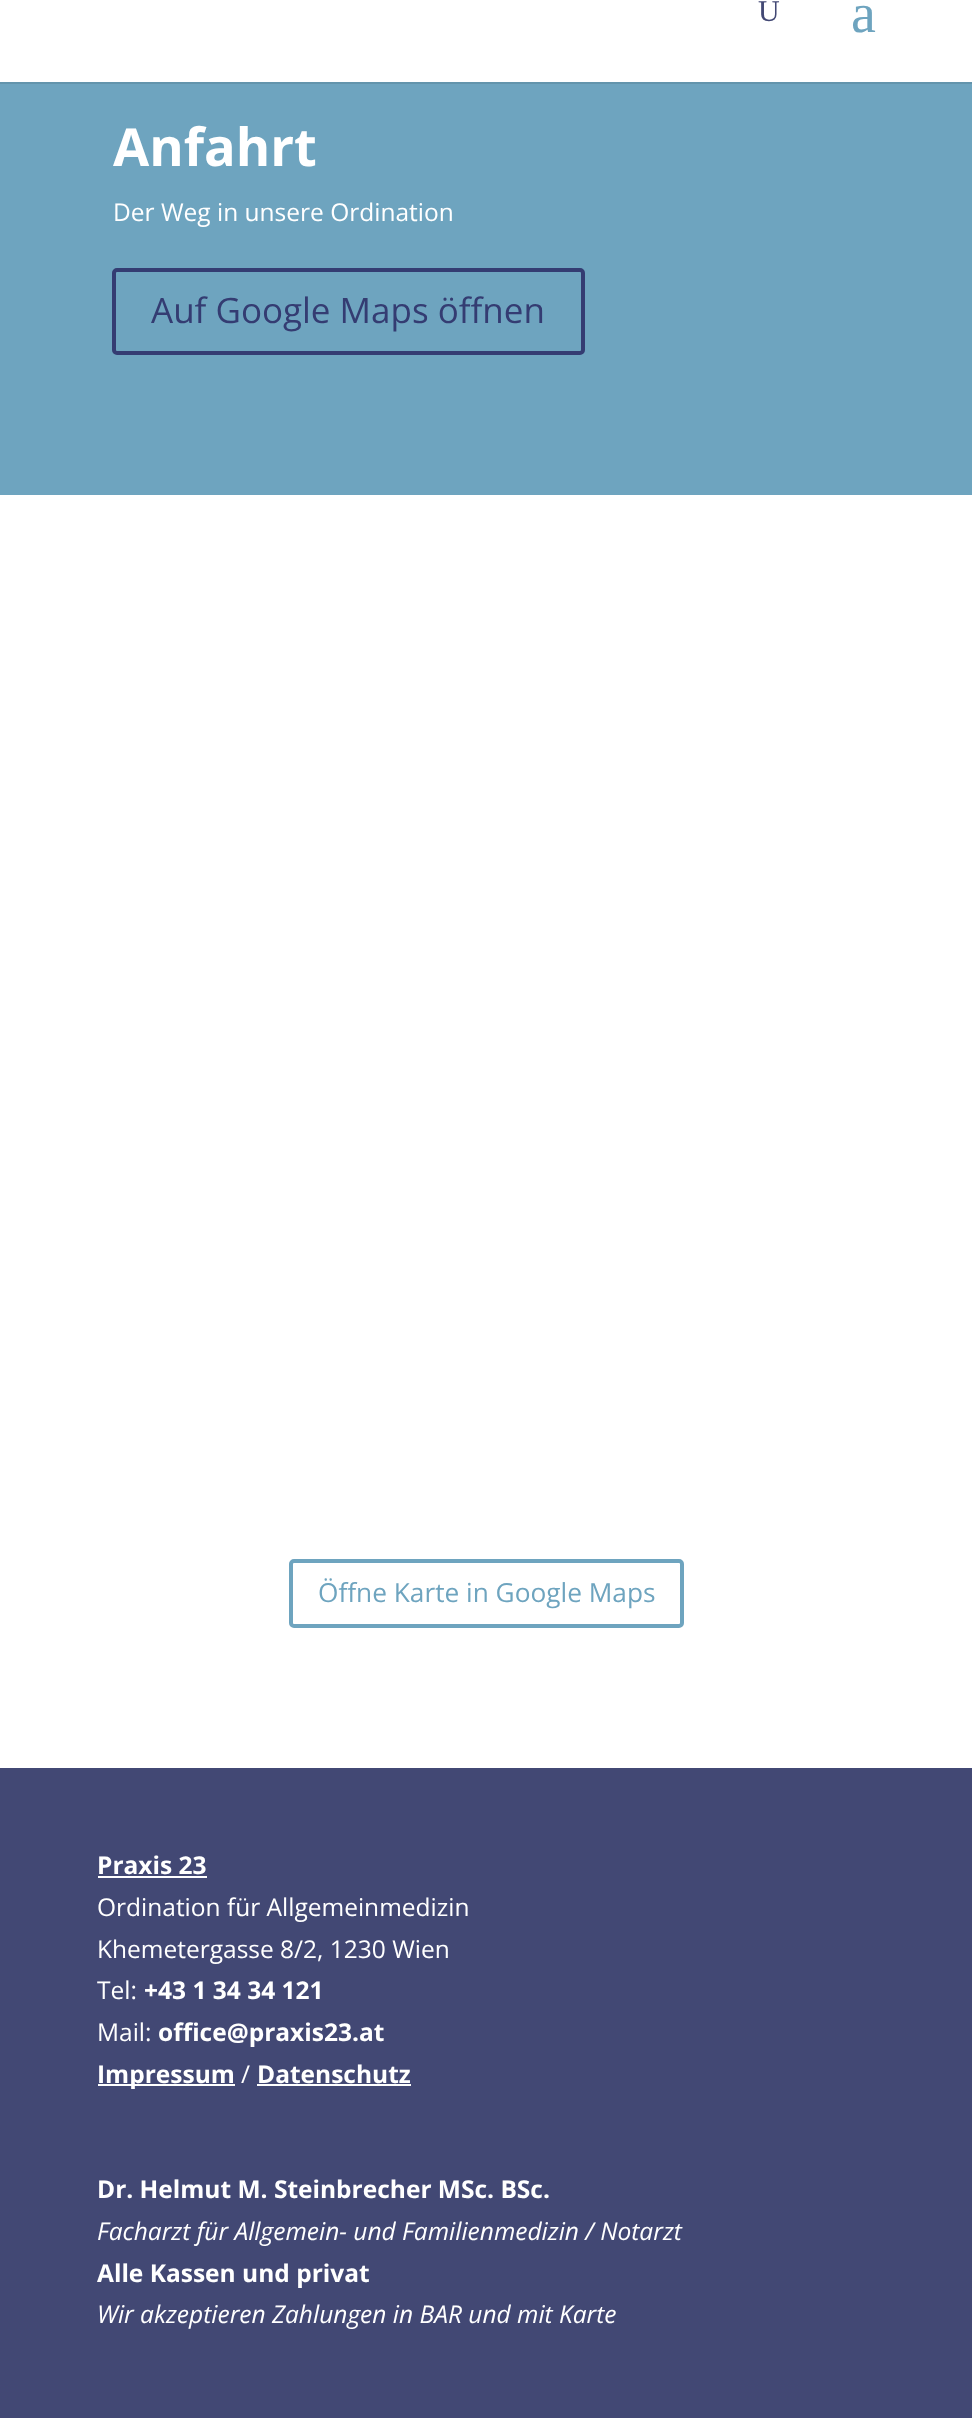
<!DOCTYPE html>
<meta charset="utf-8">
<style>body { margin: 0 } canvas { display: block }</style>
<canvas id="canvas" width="972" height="2418"></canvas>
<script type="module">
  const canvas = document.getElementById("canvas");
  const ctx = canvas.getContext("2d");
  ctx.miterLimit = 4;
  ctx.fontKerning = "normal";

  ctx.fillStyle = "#424874";
  ctx.fillRect(0, 0, 972, 2418);
  ctx.fillStyle = "#6394ac";
  ctx.fillRect(0, 82, 972, 2);
  ctx.fillStyle = "#ffffff";
  ctx.fillRect(0, 0, 972, 82);
  ctx.font = "30px Liberation Serif";
  ctx.fillStyle = "#424874";
  ctx.fillText("U", 758, 21);
  ctx.font = "56px Liberation Serif";
  ctx.fillStyle = "#6ea4bf";
  ctx.fillText("a", 851, 32);
  ctx.fillRect(0, 84, 972, 411);
  ctx.font = "bold 52.5px Open Sans";
  ctx.fillStyle = "#ffffff";
  ctx.fillText("Anfahrt", 113, 166);
  ctx.font = "24.5px Open Sans";
  ctx.fillText("Der Weg in unsere Ordination", 113, 221);
  ctx.beginPath();
  ctx.roundRect(114, 270, 469, 83, 3);
  ctx.strokeStyle = "#343c72";
  ctx.lineWidth = 4;
  ctx.stroke();
  ctx.font = "35px Open Sans";
  ctx.fillStyle = "#343c72";
  ctx.fillText("Auf Google Maps öffnen", 151, 323);
  ctx.fillStyle = "#ffffff";
  ctx.fillRect(0, 495, 972, 1273);
  ctx.beginPath();
  ctx.roundRect(291, 1561, 391, 65, 3);
  ctx.strokeStyle = "#6ea4bf";
  ctx.stroke();
  ctx.font = "26.25px Open Sans";
  ctx.fillStyle = "#6ea4bf";
  ctx.fillText("Öffne Karte in Google Maps", 318, 1602);
  ctx.font = "bold 24.5px Open Sans";
  ctx.fillStyle = "#ffffff";
  ctx.fillText("Praxis 23", 97, 1874);
  ctx.fillRect(98, 1876, 109, 2);
  ctx.font = "24.5px Open Sans";
  ctx.fillText("Ordination für Allgemeinmedizin", 97, 1916);
  ctx.fillText("Khemetergasse 8/2, 1230 Wien", 97, 1958);
  ctx.fillText("Tel:", 97, 1999);
  ctx.font = "bold 24.5px Open Sans";
  ctx.fillText("+43 1 34 34 121", 144, 1999);
  ctx.font = "24.5px Open Sans";
  ctx.fillText("Mail:", 97, 2041);
  ctx.font = "bold 24.5px Open Sans";
  ctx.fillText("office@praxis23.at", 158, 2041);
  ctx.fillRect(98, 2084, 137, 2);
  ctx.fillText("Impressum", 97, 2083);
  ctx.font = "24.5px Open Sans";
  ctx.fillText("/", 241, 2083);
  ctx.font = "bold 24.5px Open Sans";
  ctx.fillText("Datenschutz", 257, 2083);
  ctx.fillRect(257, 2084, 154, 2);
  ctx.fillText("Dr. Helmut M. Steinbrecher MSc. BSc.", 97, 2198);
  ctx.font = "italic 24.5px Open Sans";
  ctx.fillText("Facharzt für Allgemein- und Familienmedizin / Notarzt", 97, 2240);
  ctx.font = "bold 24.5px Open Sans";
  ctx.fillText("Alle Kassen und privat", 97, 2282);
  ctx.font = "italic 24.5px Open Sans";
  ctx.fillText("Wir akzeptieren Zahlungen in BAR und mit Karte", 97, 2323);
</script>
